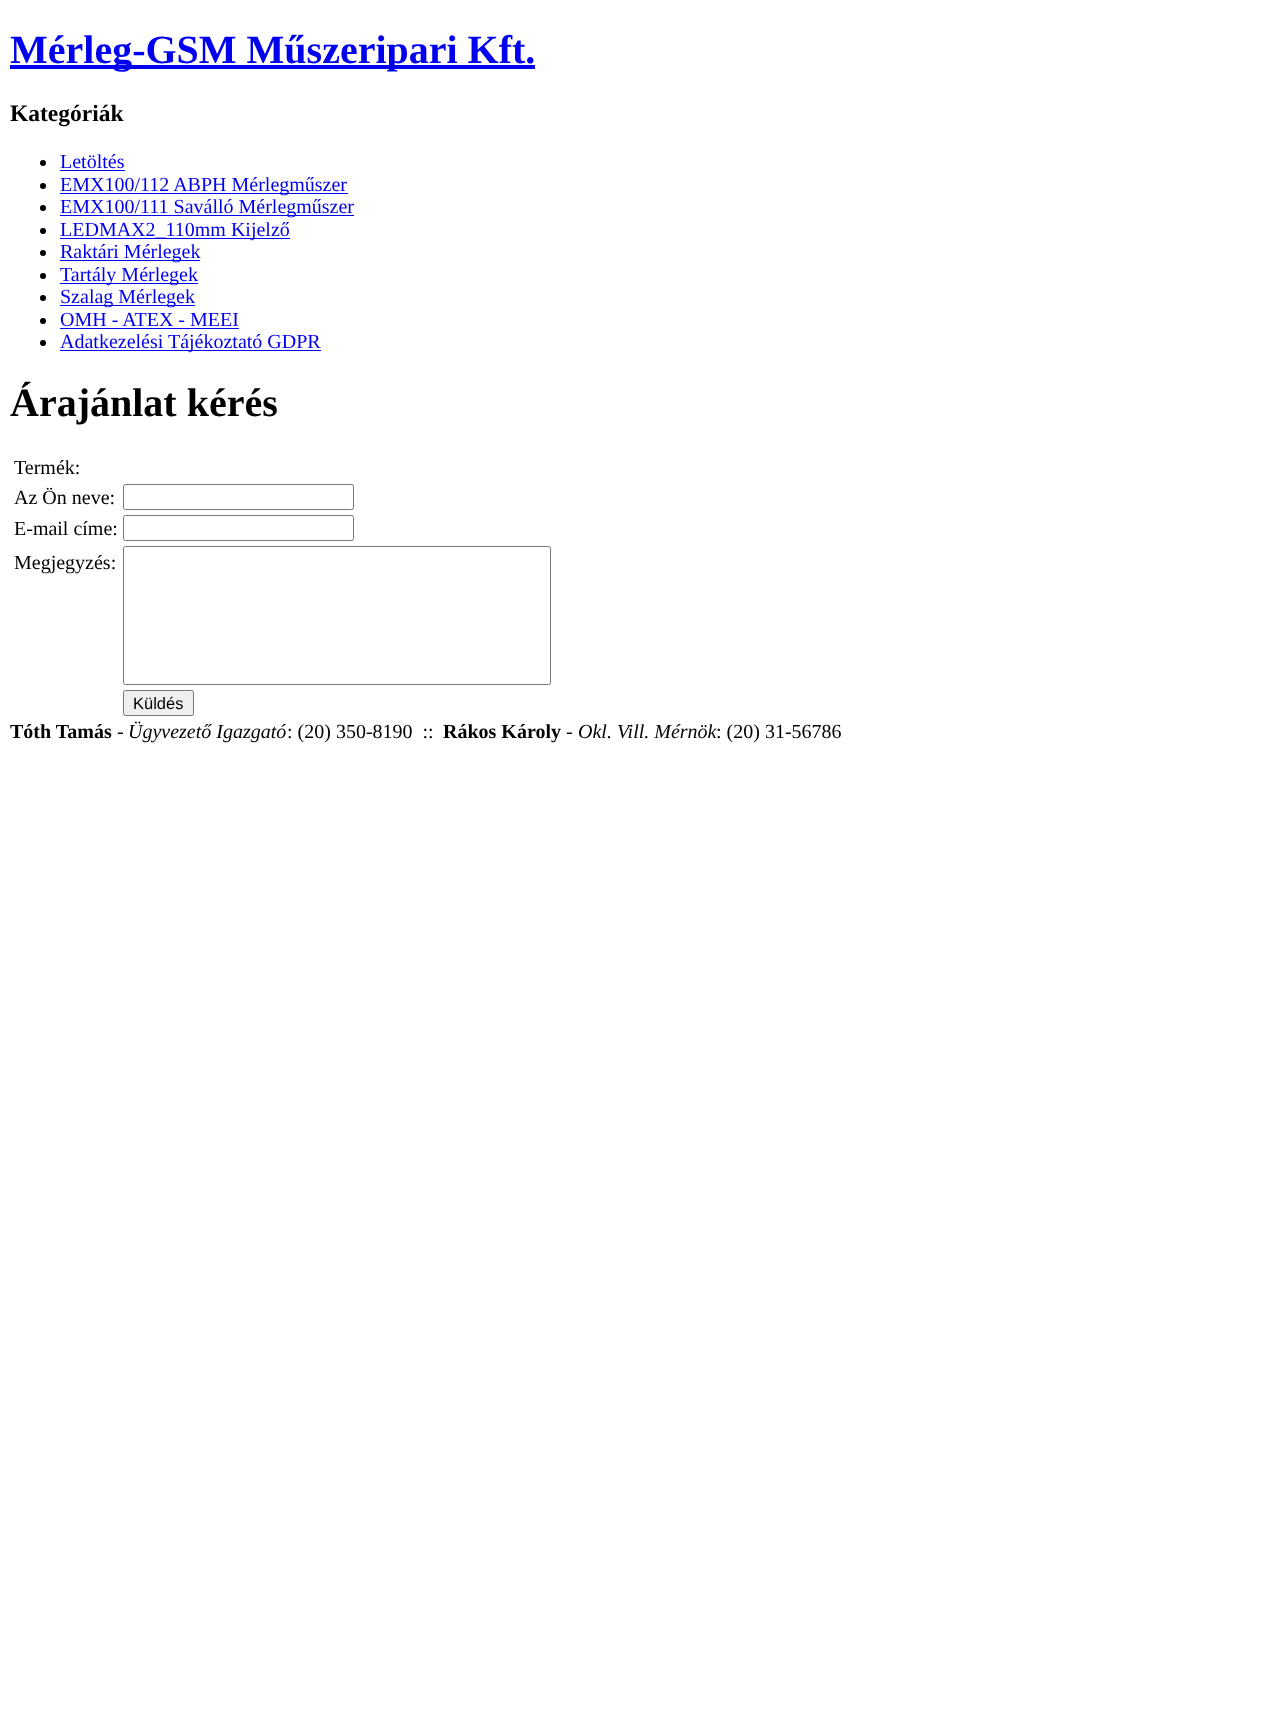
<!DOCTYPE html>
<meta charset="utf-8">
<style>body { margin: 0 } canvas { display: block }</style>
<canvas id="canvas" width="1288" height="1729"></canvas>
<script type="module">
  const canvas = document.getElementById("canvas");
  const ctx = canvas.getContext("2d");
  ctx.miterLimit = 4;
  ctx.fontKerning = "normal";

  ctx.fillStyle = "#ffffff";
  ctx.fillRect(0, 0, 1288, 1729);
  ctx.fillStyle = "#0000ee";
  ctx.fillRect(10, 65, 525, 4);
  ctx.font = "bold 40px Liberation Serif";
  ctx.fillText("Mérleg-GSM Műszeripari Kft.", 10, 63);
  ctx.font = "bold 23.5px Liberation Serif";
  ctx.fillStyle = "#000000";
  ctx.fillText("Kategóriák", 10, 121);
  ctx.beginPath();
  ctx.arc(43, 163, 3, 0, Math.PI * 2);
  ctx.fill();
  ctx.font = "20px Liberation Serif";
  ctx.fillStyle = "#0000ee";
  ctx.fillText("Letöltés", 60, 168);
  ctx.fillRect(60, 170, 65, 1);
  ctx.fillStyle = "#000000";
  ctx.beginPath();
  ctx.arc(43, 186, 3, 0, Math.PI * 2);
  ctx.fill();
  ctx.fillStyle = "#0000ee";
  ctx.fillRect(60, 193, 288, 1);
  ctx.fillText("EMX100/112 ABPH Mérlegműszer", 60, 191);
  ctx.fillStyle = "#000000";
  ctx.beginPath();
  ctx.arc(43, 208, 3, 0, Math.PI * 2);
  ctx.fill();
  ctx.fillStyle = "#0000ee";
  ctx.fillRect(60, 215, 294, 1);
  ctx.fillText("EMX100/111 Saválló Mérlegműszer", 60, 213);
  ctx.fillStyle = "#000000";
  ctx.beginPath();
  ctx.arc(43, 231, 3, 0, Math.PI * 2);
  ctx.fill();
  ctx.fillStyle = "#0000ee";
  ctx.fillRect(60, 238, 230, 1);
  ctx.fillText("LEDMAX2_110mm Kijelző", 60, 236);
  ctx.fillStyle = "#000000";
  ctx.beginPath();
  ctx.arc(43, 253, 3, 0, Math.PI * 2);
  ctx.fill();
  ctx.fillStyle = "#0000ee";
  ctx.fillRect(60, 260, 140, 1);
  ctx.fillText("Raktári Mérlegek", 60, 258);
  ctx.fillStyle = "#000000";
  ctx.beginPath();
  ctx.arc(43, 276, 3, 0, Math.PI * 2);
  ctx.fill();
  ctx.fillStyle = "#0000ee";
  ctx.fillRect(60, 283, 138, 1);
  ctx.fillText("Tartály Mérlegek", 60, 281);
  ctx.fillStyle = "#000000";
  ctx.beginPath();
  ctx.arc(43, 298, 3, 0, Math.PI * 2);
  ctx.fill();
  ctx.fillStyle = "#0000ee";
  ctx.fillRect(60, 305, 135, 1);
  ctx.fillText("Szalag Mérlegek", 60, 303);
  ctx.fillStyle = "#000000";
  ctx.beginPath();
  ctx.arc(43, 321, 3, 0, Math.PI * 2);
  ctx.fill();
  ctx.fillStyle = "#0000ee";
  ctx.fillText("OMH - ATEX - MEEI", 60, 326);
  ctx.fillRect(60, 328, 179, 1);
  ctx.fillStyle = "#000000";
  ctx.beginPath();
  ctx.arc(43, 343, 3, 0, Math.PI * 2);
  ctx.fill();
  ctx.fillStyle = "#0000ee";
  ctx.fillRect(60, 350, 261, 1);
  ctx.fillText("Adatkezelési Tájékoztató GDPR", 60, 348);
  ctx.font = "bold 40px Liberation Serif";
  ctx.fillStyle = "#000000";
  ctx.fillText("Árajánlat kérés", 10, 416);
  ctx.font = "20px Liberation Serif";
  ctx.fillText("Termék:", 14, 474);
  ctx.fillText("Az Ön neve:", 14, 504);
  ctx.beginPath();
  ctx.roundRect(123.5, 484.5, 230, 25, 2);
  ctx.strokeStyle = "#767676";
  ctx.stroke();
  ctx.fillText("E-mail címe:", 14, 535);
  ctx.beginPath();
  ctx.roundRect(123.5, 515.5, 230, 25, 2);
  ctx.stroke();
  ctx.fillText("Megjegyzés:", 14, 569);
  ctx.beginPath();
  ctx.roundRect(123.5, 546.5, 427, 138, 2);
  ctx.stroke();
  ctx.fillStyle = "#efefef";
  ctx.beginPath();
  ctx.roundRect(123.5, 690.5, 70, 25, 2);
  ctx.fill();
  ctx.stroke();
  ctx.font = "16.5px Liberation Sans";
  ctx.fillStyle = "#000000";
  ctx.fillText("Küldés", 133, 709);
  ctx.font = "bold 20px Liberation Serif";
  ctx.fillText("Tóth Tamás", 10, 738);
  ctx.font = "20px Liberation Serif";
  ctx.fillText("-", 117, 738);
  ctx.font = "italic 20px Liberation Serif";
  ctx.fillText("Ügyvezető Igazgató", 128, 738);
  ctx.font = "20px Liberation Serif";
  ctx.fillText(": (20) 350-8190  ::", 287, 738);
  ctx.font = "bold 20px Liberation Serif";
  ctx.fillText("Rákos Károly", 443, 738);
  ctx.font = "20px Liberation Serif";
  ctx.fillText("-", 566, 738);
  ctx.font = "italic 20px Liberation Serif";
  ctx.fillText("Okl. Vill. Mérnök", 578, 738);
  ctx.font = "20px Liberation Serif";
  ctx.fillText(": (20) 31-56786", 716, 738);
</script>
